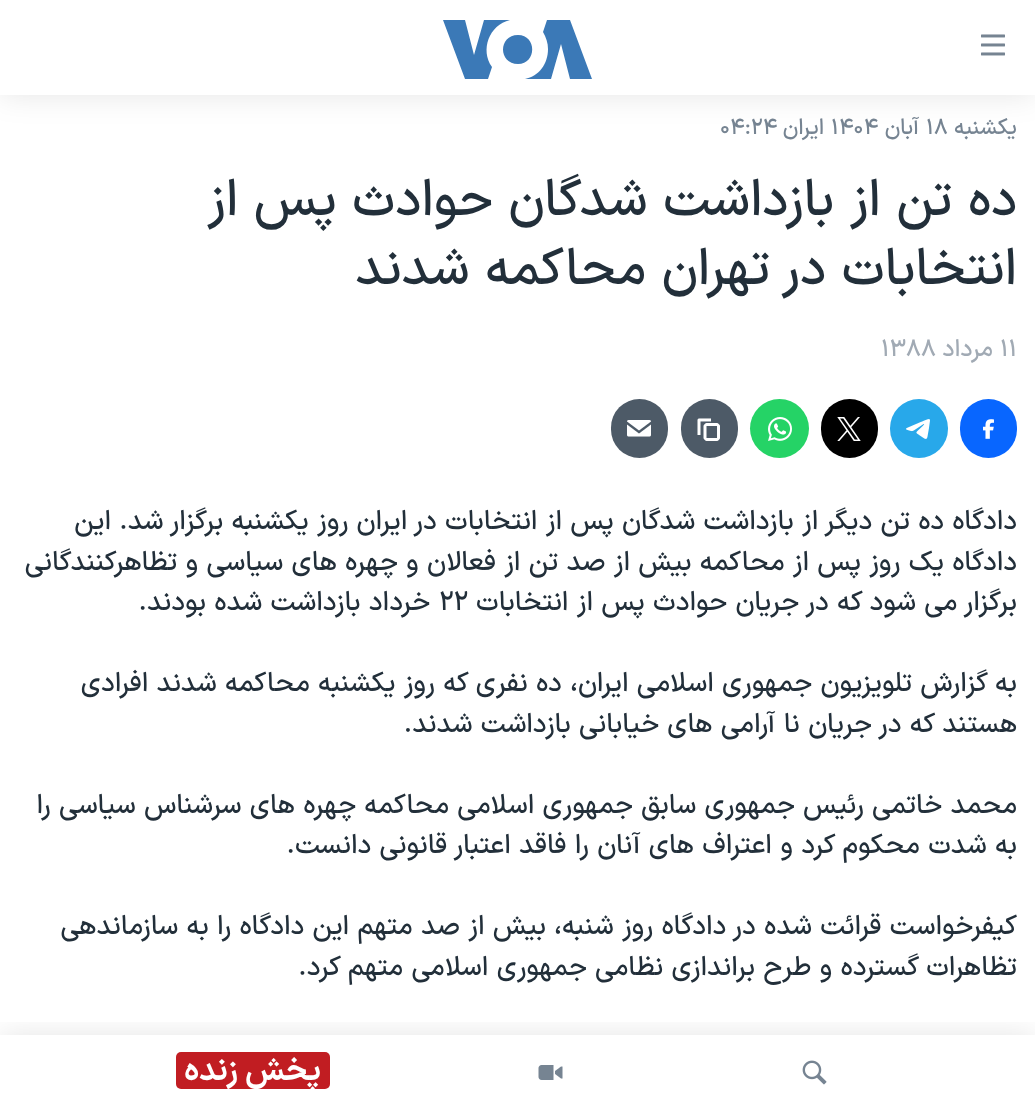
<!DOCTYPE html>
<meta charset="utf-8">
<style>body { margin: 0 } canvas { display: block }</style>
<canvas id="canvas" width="1035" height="1109"></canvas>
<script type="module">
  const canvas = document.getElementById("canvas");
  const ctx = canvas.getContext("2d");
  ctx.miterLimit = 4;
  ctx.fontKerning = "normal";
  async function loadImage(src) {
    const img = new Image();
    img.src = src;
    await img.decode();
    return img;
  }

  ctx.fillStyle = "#ffffff";
  ctx.fillRect(0, 0, 1035, 1109);
  ctx.direction = "rtl";
  ctx.font = "500 22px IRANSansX";
  ctx.fillStyle = "#768492";
  ctx.fillText("یکشنبه", 1017, 134);
  ctx.direction = "ltr";
  ctx.fillText("۱۸", 926, 134);
  ctx.direction = "rtl";
  ctx.fillText("آبان", 919, 134);
  ctx.direction = "ltr";
  ctx.fillText("۱۴۰۴", 831, 134);
  ctx.direction = "rtl";
  ctx.fillText("ایران", 824, 134);
  ctx.direction = "ltr";
  ctx.fillText("۰۴:۲۴", 720, 134);
  ctx.direction = "rtl";
  ctx.font = "500 51.25px IRANSansX";
  ctx.fillStyle = "#222f3a";
  ctx.fillText("ده تن از بازداشت شدگان حوادث پس از", 1017, 215);
  ctx.fillText("انتخابات در تهران محاکمه شدند", 1017, 284);
  ctx.direction = "ltr";
  ctx.font = "500 24px IRANSansX";
  ctx.fillStyle = "#a1aab4";
  ctx.fillText("۱۱", 1000, 356);
  ctx.direction = "rtl";
  ctx.fillText("مرداد", 993, 356);
  ctx.direction = "ltr";
  ctx.fillText("۱۳۸۸", 881, 356);
  ctx.fillStyle = "#0866ff";
  ctx.beginPath();
  ctx.roundRect(960, 399, 57, 59, 28.5);
  ctx.fill();
  ctx.drawImage(await loadImage("img1.png"), 983, 419, 11, 20);
  ctx.fillStyle = "#28a8ea";
  ctx.beginPath();
  ctx.roundRect(890, 399, 58, 59, 29);
  ctx.fill();
  ctx.drawImage(await loadImage("img2.png"), 906, 419, 24, 20);
  ctx.fillStyle = "#000000";
  ctx.beginPath();
  ctx.roundRect(821, 399, 57, 59, 28.5);
  ctx.fill();
  ctx.drawImage(await loadImage("img3.png"), 837, 417, 24, 24);
  ctx.fillStyle = "#25d366";
  ctx.beginPath();
  ctx.arc(779.5, 428.5, 29.5, 0, Math.PI * 2);
  ctx.fill();
  ctx.drawImage(await loadImage("img4.png"), 768, 417, 24, 24);
  ctx.fillStyle = "#4d5a67";
  ctx.beginPath();
  ctx.roundRect(681, 399, 57, 59, 28.5);
  ctx.fill();
  ctx.drawImage(await loadImage("img5.png"), 697, 418, 23, 23);
  ctx.beginPath();
  ctx.roundRect(611, 399, 57, 59, 28.5);
  ctx.fill();
  ctx.drawImage(await loadImage("img6.png"), 627, 420, 24, 17);
  ctx.direction = "rtl";
  ctx.font = "500 27px IRANSansX";
  ctx.fillStyle = "#222f3a";
  ctx.fillText("دادگاه ده تن دیگر از بازداشت شدگان پس از انتخابات در ایران روز یکشنبه برگزار شد. این", 1017, 529);
  ctx.fillText("دادگاه یک روز پس از محاکمه بیش از صد تن از فعالان و چهره های سیاسی و تظاهرکنندگانی", 1017, 570);
  ctx.fillText("برگزار می شود که در جریان حوادث پس از انتخابات", 1017, 610);
  ctx.direction = "ltr";
  ctx.fillText("۲۲", 439, 610);
  ctx.direction = "rtl";
  ctx.fillText("خرداد بازداشت شده بودند.", 430, 610);
  ctx.fillText("به گزارش تلویزیون جمهوری اسلامی ایران، ده نفری که روز یکشنبه محاکمه شدند افرادی", 1017, 691);
  ctx.fillText("هستند که در جریان نا آرامی های خیابانی بازداشت شدند.", 1017, 732);
  ctx.fillText("محمد خاتمی رئیس جمهوری سابق جمهوری اسلامی محاکمه چهره های سرشناس سیاسی را", 1017, 813);
  ctx.fillText("به شدت محکوم کرد و اعتراف های آنان را فاقد اعتبار قانونی دانست.", 1017, 853);
  ctx.fillText("کیفرخواست قرائت شده در دادگاه روز شنبه، بیش از صد متهم این دادگاه را به سازماندهی", 1017, 934);
  ctx.fillText("تظاهرات گسترده و طرح براندازی نظامی جمهوری اسلامی متهم کرد.", 1017, 975);
  ctx.fillStyle = "rgba(0, 0, 0, 0.1)";
  ctx.filter = "blur(15px)";
  ctx.beginPath();
  ctx.rect(0, 0, 1035, 95);
  ctx.fill();
  ctx.filter = "none";
  ctx.fillStyle = "#ffffff";
  ctx.fillRect(0, 0, 1035, 95);
  ctx.drawImage(await loadImage("img7.png"), 981, 34, 24, 22);
  ctx.fillStyle = "#3b79b7";
  ctx.beginPath();
  ctx.moveTo(492, 67);
  ctx.lineTo(488, 79);
  ctx.lineTo(465, 79);
  ctx.lineTo(443, 20);
  ctx.lineTo(465, 20);
  ctx.lineTo(474, 55);
  ctx.lineTo(484, 20);
  ctx.lineTo(510, 20);
  ctx.bezierCurveTo(489, 25, 480, 50, 492, 67);
  ctx.closePath();
  ctx.moveTo(518, 35);
  ctx.bezierCurveTo(498, 35, 498, 64, 518, 64);
  ctx.bezierCurveTo(537, 64, 537, 35, 518, 35);
  ctx.closePath();
  ctx.moveTo(548, 49);
  ctx.bezierCurveTo(548, 64, 539, 76, 525, 79);
  ctx.lineTo(551, 79);
  ctx.lineTo(561, 44);
  ctx.lineTo(570, 79);
  ctx.lineTo(592, 79);
  ctx.lineTo(570, 20);
  ctx.lineTo(547, 20);
  ctx.lineTo(543, 32);
  ctx.bezierCurveTo(546, 37, 548, 43, 548, 49);
  ctx.closePath();
  ctx.fill();
  ctx.save();
  ctx.beginPath();
  ctx.rect(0, 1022, 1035, 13);
  ctx.clip();
  ctx.fillStyle = "rgba(0, 0, 0, 0.1)";
  ctx.filter = "blur(15px)";
  ctx.beginPath();
  ctx.rect(0, 1035, 1035, 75);
  ctx.fill();
  ctx.filter = "none";
  ctx.restore();
  ctx.drawImage(await loadImage("img8.png"), 802, 1060, 25, 25);
  ctx.drawImage(await loadImage("img9.png"), 538, 1065, 25, 15);
  ctx.fillStyle = "#c11d22";
  ctx.beginPath();
  ctx.roundRect(176, 1052, 154, 37, 5);
  ctx.fill();
  ctx.font = "bold 31.5px IRANSansX";
  ctx.fillStyle = "#ffffff";
  ctx.fillText("پخش زنده", 321, 1080);
</script>
